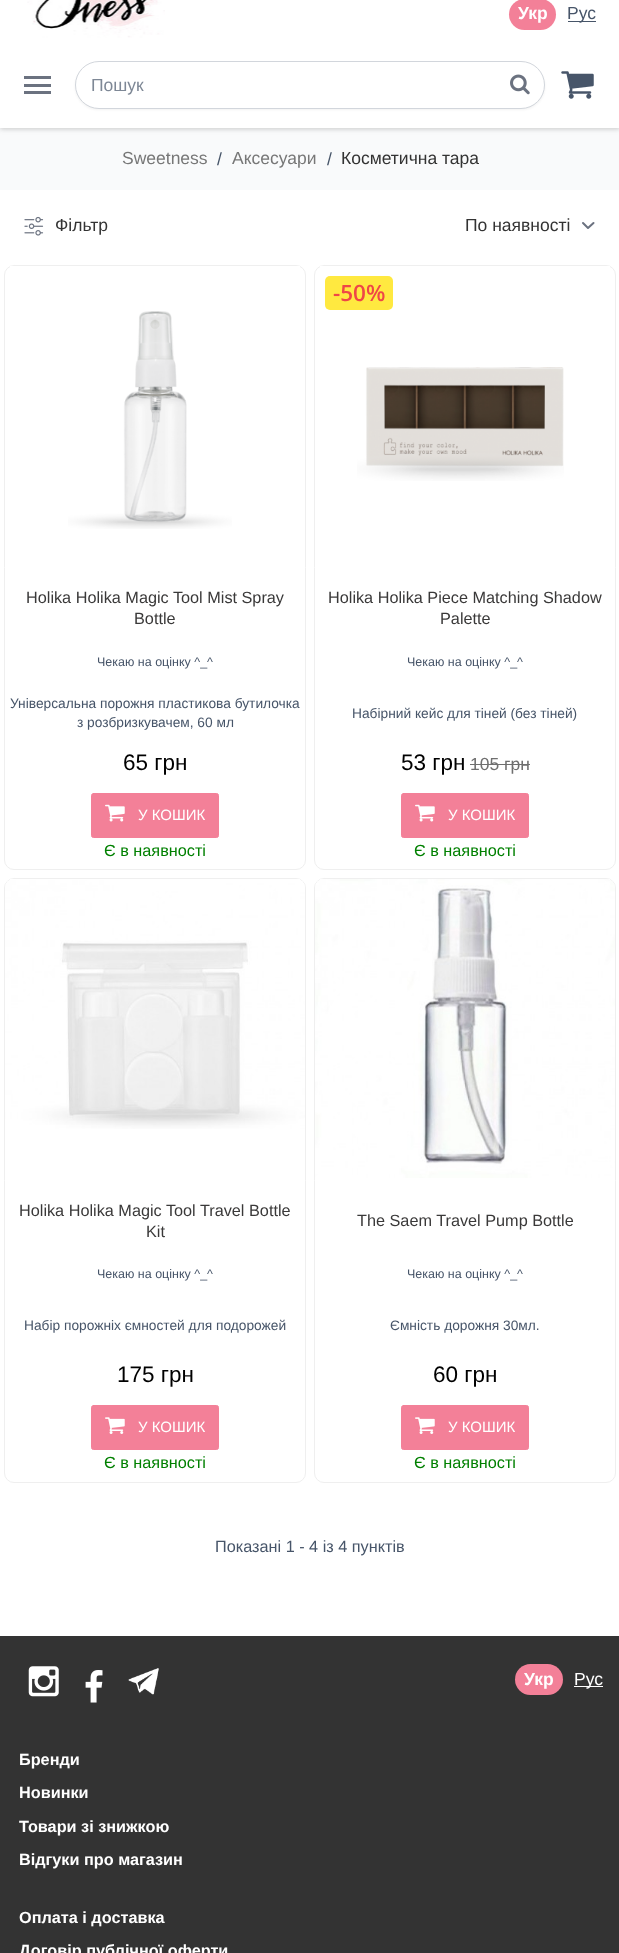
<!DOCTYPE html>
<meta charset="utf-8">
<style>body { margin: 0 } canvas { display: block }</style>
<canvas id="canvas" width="619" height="1953"></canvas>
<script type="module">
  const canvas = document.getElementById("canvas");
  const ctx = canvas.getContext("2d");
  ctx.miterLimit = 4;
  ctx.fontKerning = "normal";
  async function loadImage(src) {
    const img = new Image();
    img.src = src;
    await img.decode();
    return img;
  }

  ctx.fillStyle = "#ffffff";
  ctx.fillRect(0, 0, 619, 1953);
  ctx.fillStyle = "#f9fafb";
  ctx.fillRect(0, 128, 619, 62);
  ctx.fillStyle = "rgba(86, 86, 86, 0.3)";
  ctx.filter = "blur(2.5px)";
  ctx.beginPath();
  ctx.rect(0, -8, 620, 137);
  ctx.fill();
  ctx.filter = "none";
  ctx.fillStyle = "#ffffff";
  ctx.fillRect(0, 0, 619, 128);
  ctx.fillStyle = "#f38098";
  ctx.beginPath();
  ctx.roundRect(509, -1, 47, 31, 15.5);
  ctx.fill();
  ctx.font = "bold 17.5px Liberation Sans";
  ctx.fillStyle = "#ffffff";
  ctx.fillText("Укр", 518, 19);
  ctx.fillStyle = "#475569";
  ctx.fillRect(568, 21, 28, 1);
  ctx.font = "17.5px Liberation Sans";
  ctx.fillText("Рус", 567, 19);
  ctx.drawImage(await loadImage("img1.png"), 561, 71, 33, 28);
  ctx.drawImage(await loadImage("img2.png"), 27, 0, 138, 38);
  ctx.fillStyle = "#6b7280";
  ctx.fillRect(24, 76, 27, 3);
  ctx.fillRect(24, 84, 27, 3);
  ctx.fillRect(24, 91, 27, 3);
  ctx.fillStyle = "rgba(0, 0, 0, 0.05)";
  ctx.filter = "blur(1px)";
  ctx.beginPath();
  ctx.roundRect(75, 63, 470, 47, 23.5);
  ctx.fill();
  ctx.filter = "none";
  ctx.fillStyle = "#ffffff";
  ctx.beginPath();
  ctx.roundRect(75.5, 61.5, 469, 47, 23.5);
  ctx.fill();
  ctx.strokeStyle = "#d2d6dc";
  ctx.stroke();
  ctx.fillStyle = "#7e8896";
  ctx.fillText("Пошук", 91, 91);
  ctx.drawImage(await loadImage("img3.png"), 510, 74, 20, 21);
  ctx.fillStyle = "#777777";
  ctx.fillText("Sweetness", 122, 164);
  ctx.fillStyle = "#475569";
  ctx.fillText("/", 217, 165);
  ctx.fillStyle = "#777777";
  ctx.fillText("Аксесуари", 232, 164);
  ctx.fillStyle = "#475569";
  ctx.fillText("/", 327, 165);
  ctx.fillStyle = "#333333";
  ctx.fillText("Косметична тара", 341, 164);
  ctx.drawImage(await loadImage("img4.png"), 24, 216, 20, 20);
  ctx.fillText("Фільтр", 55, 231);
  ctx.beginPath();
  ctx.moveTo(583, 223);
  ctx.lineTo(588, 228);
  ctx.lineTo(593.5, 223);
  ctx.strokeStyle = "#6b7280";
  ctx.lineWidth = 2;
  ctx.lineCap = "round";
  ctx.lineJoin = "round";
  ctx.stroke();
  ctx.fillText("По наявності", 465, 231);
  ctx.beginPath();
  ctx.roundRect(4.5, 265.5, 301, 604, 9.5);
  ctx.strokeStyle = "#efefef";
  ctx.lineWidth = 1;
  ctx.lineJoin = "miter";
  ctx.stroke();
  ctx.fillStyle = "#ffffff";
  ctx.fillRect(10, 266, 290, 1);
  ctx.drawImage(await loadImage("img5.png"), 68, 311, 164, 218);
  ctx.font = "16.25px Liberation Sans";
  ctx.fillStyle = "#3a3939";
  ctx.fillText("Holika Holika Magic Tool Mist Spray", 26, 603);
  ctx.fillText("Bottle", 134, 624);
  ctx.font = "12.5px Liberation Sans";
  ctx.fillStyle = "#475569";
  ctx.fillText("Чекаю на оцінку ^_^", 97, 666);
  ctx.font = "13.75px Liberation Sans";
  ctx.fillText("Універсальна порожня пластикова бутилочка", 10, 708);
  ctx.fillText("з розбризкувачем, 60 мл", 77, 727);
  ctx.font = "22.5px Liberation Sans";
  ctx.fillStyle = "#000000";
  ctx.fillText("65 грн", 123, 770);
  ctx.fillStyle = "#f38098";
  ctx.beginPath();
  ctx.roundRect(91.5, 793.5, 127, 44, 2);
  ctx.fill();
  ctx.strokeStyle = "#f38098";
  ctx.stroke();
  ctx.drawImage(await loadImage("img6.png"), 105, 804, 20, 18);
  ctx.font = "15px Liberation Sans";
  ctx.fillStyle = "#ffffff";
  ctx.fillText("У КОШИК", 138, 820);
  ctx.font = "16.25px Liberation Sans";
  ctx.fillStyle = "#008000";
  ctx.fillText("Є в наявності", 104, 856);
  ctx.beginPath();
  ctx.roundRect(314.5, 265.5, 301, 604, 9.5);
  ctx.strokeStyle = "#efefef";
  ctx.stroke();
  ctx.fillStyle = "#ffffff";
  ctx.fillRect(320, 266, 290, 1);
  ctx.fillStyle = "#ffe940";
  ctx.beginPath();
  ctx.roundRect(325, 276, 68, 34, 5);
  ctx.fill();
  ctx.font = "600 22.5px Open Sans";
  ctx.fillStyle = "#ef4747";
  ctx.fillText("-50%", 333, 301);
  ctx.font = "22.5px Liberation Sans";
  ctx.fillStyle = "#000000";
  ctx.fillText("53 грн", 401, 770);
  ctx.font = "17.5px Liberation Sans";
  ctx.fillStyle = "#6f6f6f";
  ctx.fillText("105 грн", 470, 770);
  ctx.fillRect(470, 764, 60, 1);
  ctx.fillStyle = "#f38098";
  ctx.beginPath();
  ctx.roundRect(401.5, 793.5, 127, 44, 2);
  ctx.fill();
  ctx.strokeStyle = "#f38098";
  ctx.stroke();
  ctx.drawImage(await loadImage("img6.png"), 415, 804, 20, 18);
  ctx.font = "15px Liberation Sans";
  ctx.fillStyle = "#ffffff";
  ctx.fillText("У КОШИК", 448, 820);
  ctx.font = "16.25px Liberation Sans";
  ctx.fillStyle = "#008000";
  ctx.fillText("Є в наявності", 414, 856);
  ctx.fillStyle = "#3a3939";
  ctx.fillText("Holika Holika Piece Matching Shadow", 328, 603);
  ctx.fillText("Palette", 440, 624);
  ctx.font = "12.5px Liberation Sans";
  ctx.fillStyle = "#475569";
  ctx.fillText("Чекаю на оцінку ^_^", 407, 666);
  ctx.font = "13.75px Liberation Sans";
  ctx.fillText("Набірний кейс для тіней (без тіней)", 352, 718);
  ctx.drawImage(await loadImage("img7.png"), 357, 367, 207, 114);
  ctx.beginPath();
  ctx.roundRect(4.5, 878.5, 301, 604, 9.5);
  ctx.strokeStyle = "#efefef";
  ctx.stroke();
  ctx.fillStyle = "#ffffff";
  ctx.fillRect(10, 879, 290, 1);
  ctx.drawImage(await loadImage("img8.png"), 5, 880, 300, 249);
  ctx.font = "16.25px Liberation Sans";
  ctx.fillStyle = "#3a3939";
  ctx.fillText("Holika Holika Magic Tool Travel Bottle", 19, 1216);
  ctx.fillText("Kit", 146, 1237);
  ctx.font = "12.5px Liberation Sans";
  ctx.fillStyle = "#475569";
  ctx.fillText("Чекаю на оцінку ^_^", 97, 1278);
  ctx.font = "13.75px Liberation Sans";
  ctx.fillText("Набір порожніх ємностей для подорожей", 24, 1330);
  ctx.font = "22.5px Liberation Sans";
  ctx.fillStyle = "#000000";
  ctx.fillText("175 грн", 117, 1382);
  ctx.fillStyle = "#f38098";
  ctx.beginPath();
  ctx.roundRect(91.5, 1405.5, 127, 44, 2);
  ctx.fill();
  ctx.strokeStyle = "#f38098";
  ctx.stroke();
  ctx.drawImage(await loadImage("img9.png"), 105, 1417, 20, 17);
  ctx.font = "15px Liberation Sans";
  ctx.fillStyle = "#ffffff";
  ctx.fillText("У КОШИК", 138, 1432);
  ctx.font = "16.25px Liberation Sans";
  ctx.fillStyle = "#008000";
  ctx.fillText("Є в наявності", 104, 1468);
  ctx.beginPath();
  ctx.roundRect(314.5, 878.5, 301, 604, 9.5);
  ctx.strokeStyle = "#efefef";
  ctx.stroke();
  ctx.fillStyle = "#ffffff";
  ctx.fillRect(320, 879, 290, 1);
  ctx.drawImage(await loadImage("img10.png"), 315, 879, 300, 299);
  ctx.fillStyle = "#3a3939";
  ctx.fillText("The Saem Travel Pump Bottle", 357, 1226);
  ctx.font = "12.5px Liberation Sans";
  ctx.fillStyle = "#475569";
  ctx.fillText("Чекаю на оцінку ^_^", 407, 1278);
  ctx.font = "13.75px Liberation Sans";
  ctx.fillText("Ємність дорожня 30мл.", 390, 1330);
  ctx.font = "22.5px Liberation Sans";
  ctx.fillStyle = "#000000";
  ctx.fillText("60 грн", 433, 1382);
  ctx.fillStyle = "#f38098";
  ctx.beginPath();
  ctx.roundRect(401.5, 1405.5, 127, 44, 2);
  ctx.fill();
  ctx.strokeStyle = "#f38098";
  ctx.stroke();
  ctx.drawImage(await loadImage("img9.png"), 415, 1417, 20, 17);
  ctx.font = "15px Liberation Sans";
  ctx.fillStyle = "#ffffff";
  ctx.fillText("У КОШИК", 448, 1432);
  ctx.font = "16.25px Liberation Sans";
  ctx.fillStyle = "#008000";
  ctx.fillText("Є в наявності", 414, 1468);
  ctx.fillStyle = "#475569";
  ctx.fillText("Показані 1 - 4 із 4 пунктів", 215, 1552);
  ctx.fillStyle = "#333333";
  ctx.fillRect(0, 1636, 619, 317);
  ctx.drawImage(await loadImage("img11.png"), 28, 1666, 31, 31);
  ctx.drawImage(await loadImage("img12.png"), 85, 1670, 18, 33);
  ctx.drawImage(await loadImage("img13.png"), 128, 1668, 31, 27);
  ctx.fillStyle = "#f38098";
  ctx.beginPath();
  ctx.roundRect(515, 1664, 48, 31, 15.5);
  ctx.fill();
  ctx.font = "bold 17.5px Liberation Sans";
  ctx.fillStyle = "#ffffff";
  ctx.fillText("Укр", 524, 1685);
  ctx.fillRect(574, 1686, 29, 1);
  ctx.font = "17.5px Liberation Sans";
  ctx.fillText("Рус", 574, 1685);
  ctx.font = "bold 16.25px Liberation Sans";
  ctx.fillText("Бренди", 19, 1765);
  ctx.fillText("Новинки", 19, 1798);
  ctx.fillText("Товари зі знижкою", 19, 1832);
  ctx.fillText("Відгуки про магазин", 19, 1865);
  ctx.fillText("Оплата і доставка", 19, 1923);
  ctx.fillText("Договір публічної оферти", 19, 1956);
</script>
